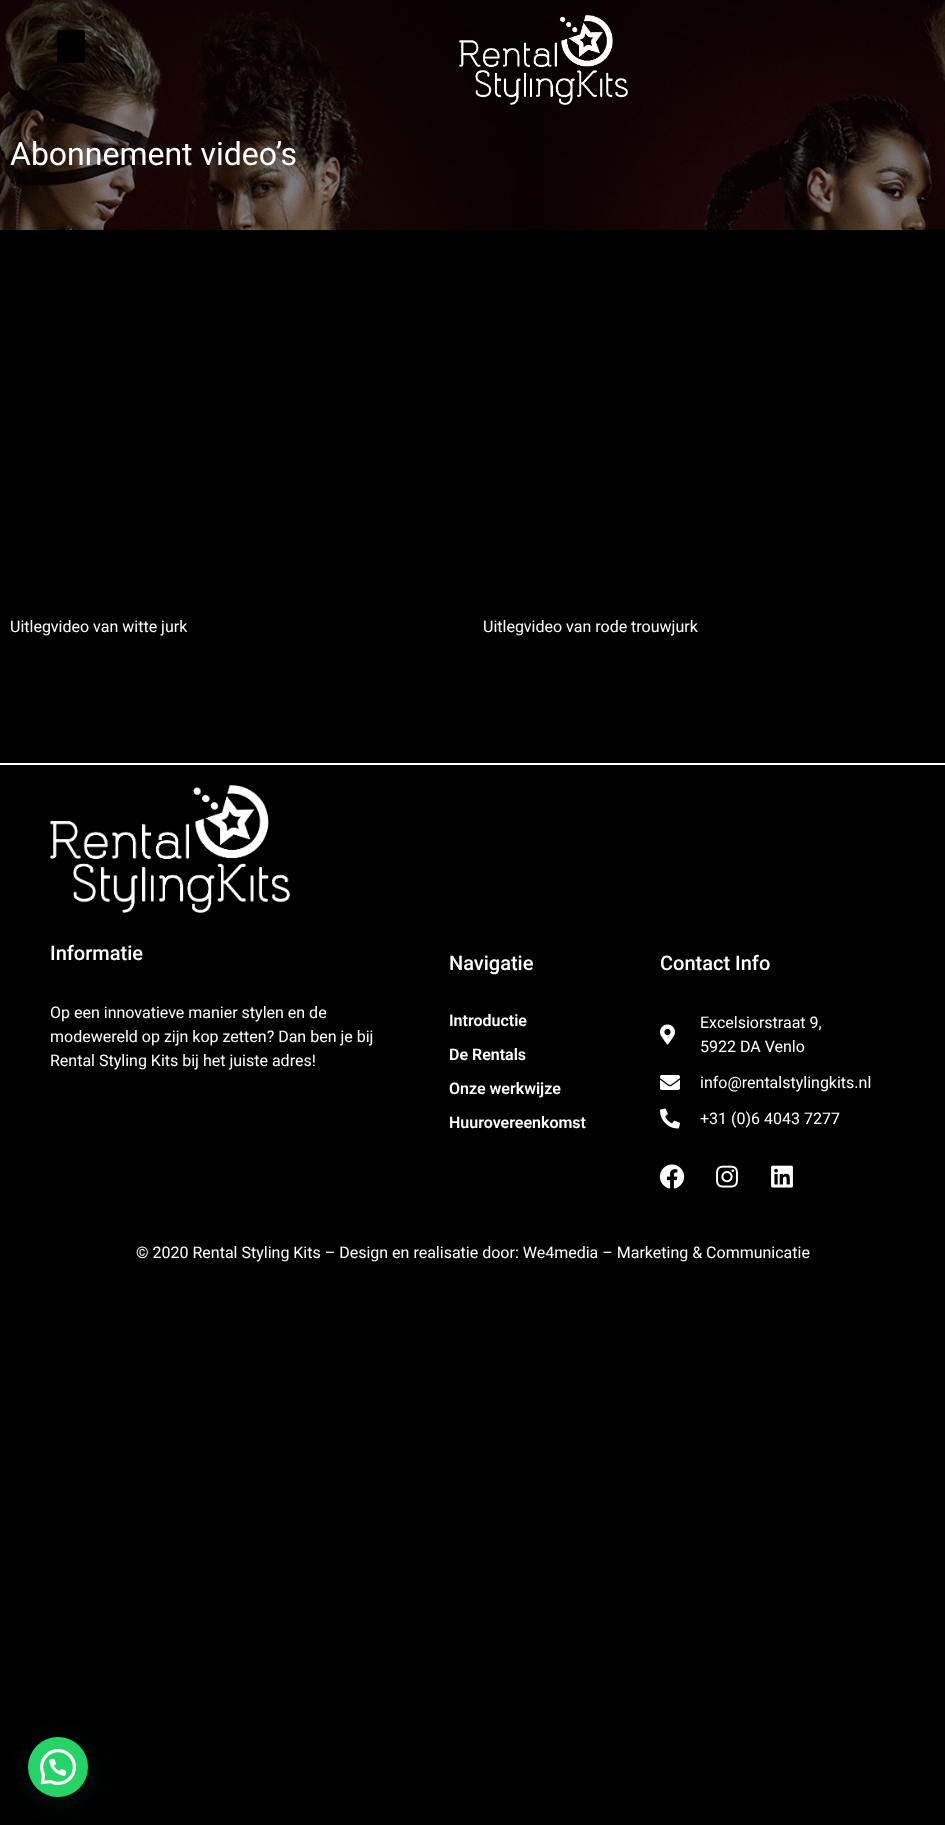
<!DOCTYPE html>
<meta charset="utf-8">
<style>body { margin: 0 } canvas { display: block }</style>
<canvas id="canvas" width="945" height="1825"></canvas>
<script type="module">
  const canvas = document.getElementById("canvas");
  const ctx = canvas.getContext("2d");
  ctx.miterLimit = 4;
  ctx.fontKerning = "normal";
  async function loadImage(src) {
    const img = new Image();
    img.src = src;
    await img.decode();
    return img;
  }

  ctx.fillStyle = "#000000";
  ctx.fillRect(0, 0, 945, 1825);
  ctx.drawImage(await loadImage("img2.png"), 0, 0, 945, 230);
  ctx.beginPath();
  ctx.roundRect(57, 30, 28, 33, 3);
  ctx.fill();
  ctx.drawImage(await loadImage("img1.png"), 459, 15, 169, 90);
  ctx.font = "32px Roboto";
  ctx.fillStyle = "#ffffff";
  ctx.fillText("Abonnement video’s", 10, 165);
  ctx.font = "16px Roboto";
  ctx.fillText("Uitlegvideo van witte jurk", 10, 632);
  ctx.fillText("Uitlegvideo van rode trouwjurk", 483, 632);
  ctx.fillRect(0, 763, 945, 2);
  ctx.drawImage(await loadImage("img3.png"), 50, 785, 240, 128);
  ctx.font = "500 20px Roboto";
  ctx.fillText("Informatie", 50, 960);
  ctx.font = "16px Roboto";
  ctx.fillText("Op een innovatieve manier stylen en de", 50, 1018);
  ctx.fillText("modewereld op zijn kop zetten? Dan ben je bij", 50, 1042);
  ctx.fillText("Rental Styling Kits bij het juiste adres!", 50, 1066);
  ctx.font = "500 20px Roboto";
  ctx.fillText("Navigatie", 449, 970);
  ctx.font = "600 16px Roboto";
  ctx.fillText("Introductie", 449, 1026);
  ctx.fillText("De Rentals", 449, 1060);
  ctx.fillText("Onze werkwijze", 449, 1094);
  ctx.fillText("Huurovereenkomst", 449, 1128);
  ctx.font = "500 20px Roboto";
  ctx.fillText("Contact Info", 660, 970);
  ctx.drawImage(await loadImage("img4.png"), 660, 1024, 15, 21);
  ctx.font = "16px Roboto";
  ctx.fillText("Excelsiorstraat 9,", 700, 1028);
  ctx.fillText("5922 DA Venlo", 700, 1052);
  ctx.drawImage(await loadImage("img5.png"), 660, 1075, 20, 15);
  ctx.fillText("info@rentalstylingkits.nl", 700, 1088);
  ctx.drawImage(await loadImage("img6.png"), 660, 1108, 20, 21);
  ctx.fillText("+31 (0)6 4043 7277", 700, 1124);
  ctx.drawImage(await loadImage("img7.png"), 659, 1164, 26, 25);
  ctx.drawImage(await loadImage("img8.png"), 716, 1165, 22, 23);
  ctx.drawImage(await loadImage("img9.png"), 771, 1165, 22, 23);
  ctx.fillText("© 2020 Rental Styling Kits – Design en realisatie door: We4media – Marketing & Communicatie", 136, 1258);
  ctx.fillStyle = "rgba(7, 94, 84, 0.24)";
  ctx.filter = "blur(12px)";
  ctx.beginPath();
  ctx.roundRect(29, 1743, 60, 60, 30);
  ctx.fill();
  ctx.filter = "none";
  ctx.fillStyle = "#25d366";
  ctx.beginPath();
  ctx.arc(58, 1767, 30, 0, Math.PI * 2);
  ctx.fill();
  ctx.drawImage(await loadImage("img10.png"), 40, 1749, 36, 36);
</script>
